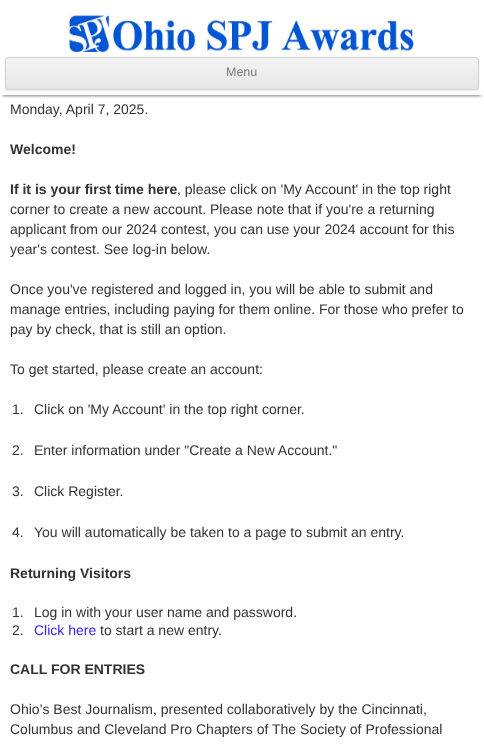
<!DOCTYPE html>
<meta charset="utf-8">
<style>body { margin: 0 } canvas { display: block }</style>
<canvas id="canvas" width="484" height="744"></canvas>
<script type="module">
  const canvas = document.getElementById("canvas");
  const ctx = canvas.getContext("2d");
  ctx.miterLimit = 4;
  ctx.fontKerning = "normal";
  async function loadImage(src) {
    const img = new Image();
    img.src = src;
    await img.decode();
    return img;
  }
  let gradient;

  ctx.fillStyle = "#ffffff";
  ctx.fillRect(0, 0, 484, 744);
  ctx.fillStyle = "#808080";
  ctx.filter = "blur(1.5px)";
  ctx.beginPath();
  ctx.rect(3, 7, 478, 89);
  ctx.fill();
  ctx.filter = "none";
  ctx.fillStyle = "#ffffff";
  ctx.fillRect(0, 4, 484, 91);
  ctx.drawImage(await loadImage("img1.png"), 67, 12, 350, 40);
  ctx.fillStyle = "rgba(64, 64, 64, 0.1)";
  ctx.filter = "blur(1px)";
  ctx.beginPath();
  ctx.roundRect(5, 58, 474, 33, 3);
  ctx.fill();
  ctx.filter = "none";
  ctx.save();
  ctx.beginPath();
  ctx.roundRect(5, 57, 474, 33, 3);
  ctx.clip();
  gradient = ctx.createLinearGradient(242, 58, 242, 89);
  gradient.addColorStop(0, "#f4f4f4");
  gradient.addColorStop(1, "#e6e6e6");
  ctx.fillStyle = gradient;
  ctx.fillRect(5, 58, 474, 31);
  ctx.restore();
  ctx.beginPath();
  ctx.roundRect(5.5, 57.5, 473, 32, 2.5);
  ctx.strokeStyle = "#d2d2d2";
  ctx.stroke();
  ctx.font = "12.5px Liberation Sans";
  ctx.fillStyle = "#7c7c7c";
  ctx.fillText("Menu", 226, 76);
  ctx.font = "14px Liberation Sans";
  ctx.fillStyle = "#333333";
  ctx.fillText("Monday, April 7, 2025.", 10, 114);
  ctx.font = "bold 14px Liberation Sans";
  ctx.fillText("Welcome!", 10, 154);
  ctx.fillText("If it is your first time here", 10, 194);
  ctx.font = "14px Liberation Sans";
  ctx.fillText(", please click on 'My Account' in the top right", 177, 194);
  ctx.fillText("corner to create a new account. Please note that if you're a returning", 10, 214);
  ctx.fillText("applicant from our 2024 contest, you can use your 2024 account for this", 10, 234);
  ctx.fillText("year's contest. See log-in below.", 10, 254);
  ctx.fillText("Once you've registered and logged in, you will be able to submit and", 10, 294);
  ctx.fillText("manage entries, including paying for them online. For those who prefer to", 10, 314);
  ctx.fillText("pay by check, that is still an option.", 10, 334);
  ctx.fillText("To get started, please create an account:", 10, 374);
  ctx.fillText("1.", 12, 414);
  ctx.fillText("Click on 'My Account' in the top right corner.", 34, 414);
  ctx.fillText("2.", 12, 455);
  ctx.fillText("Enter information under \"Create a New Account.\"", 34, 455);
  ctx.fillText("3.", 12, 496);
  ctx.fillText("Click Register.", 34, 496);
  ctx.fillText("4.", 12, 537);
  ctx.fillText("You will automatically be taken to a page to submit an entry.", 34, 537);
  ctx.font = "bold 14px Liberation Sans";
  ctx.fillText("Returning Visitors", 10, 578);
  ctx.font = "14px Liberation Sans";
  ctx.fillText("1.", 12, 617);
  ctx.fillText("Log in with your user name and password.", 34, 617);
  ctx.fillText("2.", 12, 635);
  ctx.fillStyle = "#3322ff";
  ctx.fillText("Click here", 34, 635);
  ctx.fillStyle = "#333333";
  ctx.fillText("to start a new entry.", 100, 635);
  ctx.font = "bold 14px Liberation Sans";
  ctx.fillText("CALL FOR ENTRIES", 10, 674);
  ctx.font = "14px Liberation Sans";
  ctx.fillText("Ohio’s Best Journalism, presented collaboratively by the Cincinnati,", 10, 714);
  ctx.fillText("Columbus and Cleveland Pro Chapters of The Society of Professional", 10, 734);
</script>
